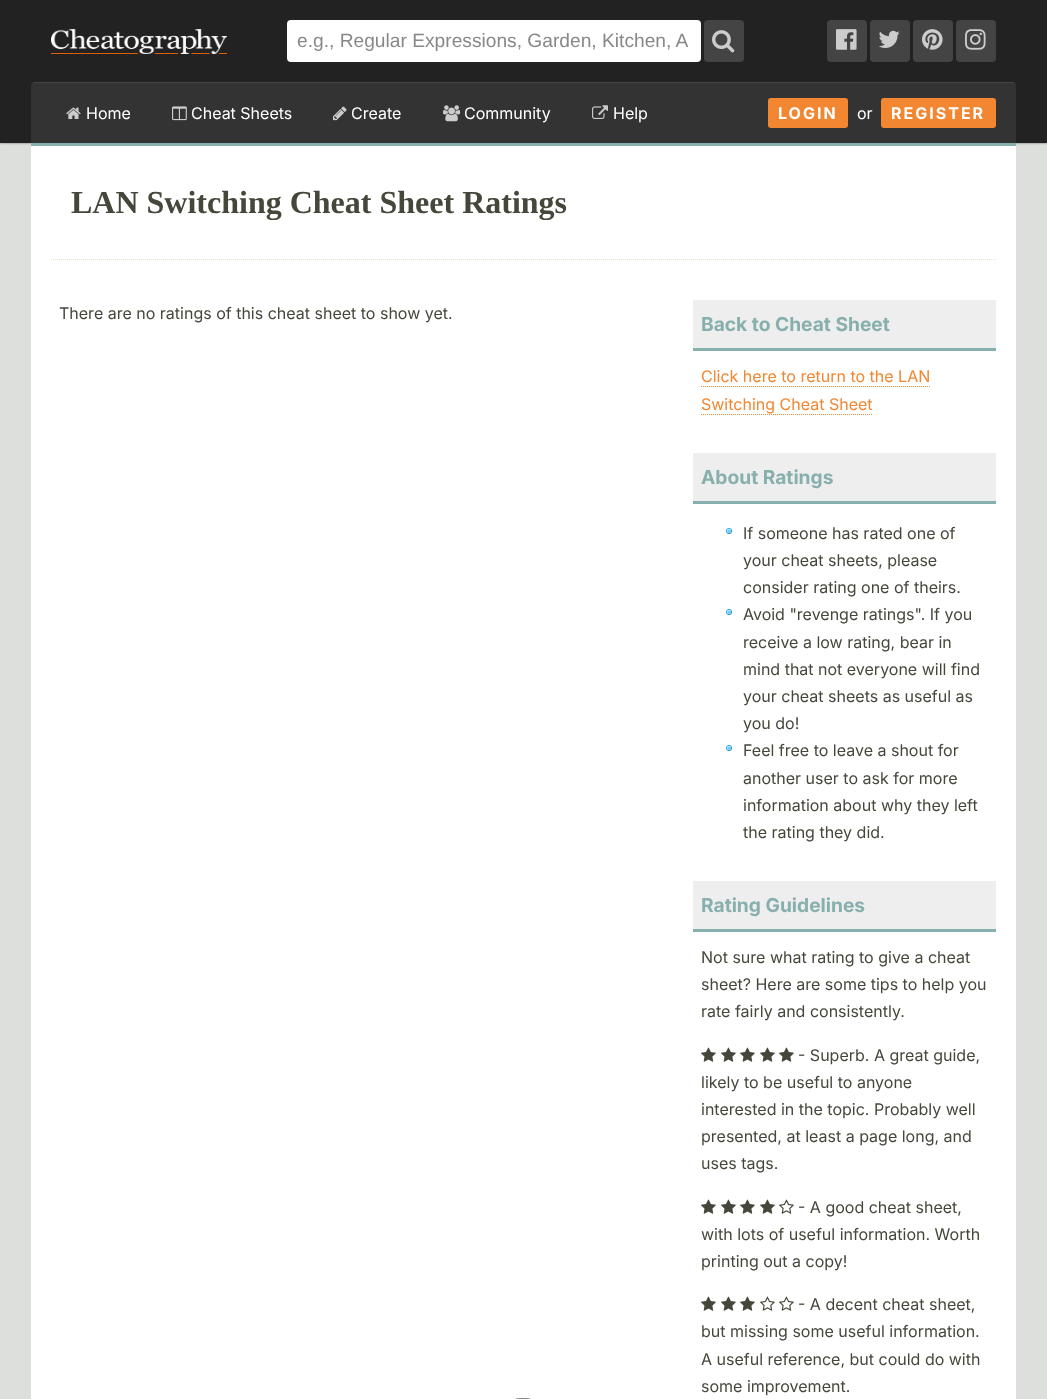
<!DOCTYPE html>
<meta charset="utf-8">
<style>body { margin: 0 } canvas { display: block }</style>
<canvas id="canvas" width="1047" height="1399"></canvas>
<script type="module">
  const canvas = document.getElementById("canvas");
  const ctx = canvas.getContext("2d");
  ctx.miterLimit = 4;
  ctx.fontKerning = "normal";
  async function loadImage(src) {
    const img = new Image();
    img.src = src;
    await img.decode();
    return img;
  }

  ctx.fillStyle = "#dddfdd";
  ctx.fillRect(0, 0, 1047, 1399);
  ctx.fillStyle = "#666666";
  ctx.filter = "blur(1px)";
  ctx.beginPath();
  ctx.rect(0, 0, 1047, 143);
  ctx.fill();
  ctx.filter = "none";
  ctx.fillStyle = "#222222";
  ctx.fillRect(0, 0, 1047, 143);
  ctx.drawImage(await loadImage("img1.png"), 51, 29, 176, 25);
  ctx.fillStyle = "#ffffff";
  ctx.beginPath();
  ctx.roundRect(287, 20, 414, 42, 4);
  ctx.fill();
  ctx.font = "19.2px Liberation Sans";
  ctx.fillStyle = "#888888";
  ctx.fillText("e.g., Regular Expressions, Garden, Kitchen, A", 297, 47);
  ctx.fillStyle = "#444444";
  ctx.beginPath();
  ctx.roundRect(704, 20, 40, 42, 4);
  ctx.fill();
  ctx.drawImage(await loadImage("img2.png"), 712, 30, 23, 23);
  ctx.beginPath();
  ctx.roundRect(827, 20, 40, 42, 4);
  ctx.fill();
  ctx.drawImage(await loadImage("img3.png"), 836, 29, 21, 21);
  ctx.beginPath();
  ctx.roundRect(870, 20, 40, 42, 4);
  ctx.fill();
  ctx.drawImage(await loadImage("img4.png"), 878, 30, 22, 18);
  ctx.beginPath();
  ctx.roundRect(913, 20, 40, 42, 4);
  ctx.fill();
  ctx.drawImage(await loadImage("img5.png"), 922, 29, 21, 21);
  ctx.beginPath();
  ctx.roundRect(956, 20, 40, 42, 4);
  ctx.fill();
  ctx.drawImage(await loadImage("img6.png"), 965, 29, 21, 21);
  ctx.fillStyle = "#333333";
  ctx.beginPath();
  ctx.roundRect(31, 82, 985, 61, [4, 4, 0, 0]);
  ctx.fill();
  ctx.fillStyle = "#444444";
  ctx.fillRect(33, 82, 981, 1);
  ctx.drawImage(await loadImage("img7.png"), 66, 107, 15, 12);
  ctx.font = "16px Inter";
  ctx.fillStyle = "#ffffff";
  ctx.fillText("Home", 86, 119);
  ctx.drawImage(await loadImage("img8.png"), 172, 106, 15, 15);
  ctx.fillText("Cheat Sheets", 191, 119);
  ctx.drawImage(await loadImage("img9.png"), 333, 106, 14, 15);
  ctx.fillText("Create", 351, 119);
  ctx.drawImage(await loadImage("img10.png"), 443, 105, 18, 17);
  ctx.fillText("Community", 464, 119);
  ctx.drawImage(await loadImage("img11.png"), 592, 105, 16, 14);
  ctx.fillText("Help", 613, 119);
  ctx.fillStyle = "#f38630";
  ctx.beginPath();
  ctx.roundRect(768, 98, 80, 30, 3);
  ctx.fill();
  ctx.letterSpacing = "2px";
  ctx.font = "bold 16px Inter";
  ctx.fillStyle = "#ffffff";
  ctx.fillText("LOGIN", 778, 119);
  ctx.letterSpacing = "0px";
  ctx.font = "16px Inter";
  ctx.fillText("or", 857, 119);
  ctx.fillStyle = "#f38630";
  ctx.beginPath();
  ctx.roundRect(881, 98, 115, 30, 3);
  ctx.fill();
  ctx.letterSpacing = "2px";
  ctx.font = "bold 16px Inter";
  ctx.fillStyle = "#ffffff";
  ctx.fillText("REGISTER", 891, 119);
  ctx.fillRect(31, 146, 985, 1253);
  ctx.fillStyle = "#86afad";
  ctx.fillRect(31, 143, 985, 3);
  ctx.beginPath();
  ctx.moveTo(51, 259.5);
  ctx.lineTo(996, 259.5);
  ctx.strokeStyle = "#e0e4cc";
  ctx.setLineDash([1, 1]);
  ctx.stroke();
  ctx.letterSpacing = "0px";
  ctx.font = "bold 32px Liberation Serif";
  ctx.fillStyle = "#46473b";
  ctx.fillText("LAN Switching Cheat Sheet Ratings", 71, 213);
  ctx.font = "16px Inter";
  ctx.fillText("There are no ratings of this cheat sheet to show yet.", 59, 319);
  ctx.fillStyle = "#eeeeee";
  ctx.fillRect(693, 300, 303, 48);
  ctx.fillStyle = "#86afad";
  ctx.fillRect(693, 348, 303, 3);
  ctx.font = "bold 19.2px Inter";
  ctx.fillText("Back to Cheat Sheet", 701, 331);
  ctx.font = "16px Inter";
  ctx.fillStyle = "#f38630";
  ctx.fillText("Click here to return to the LAN", 701, 382);
  ctx.beginPath();
  ctx.moveTo(701, 386.5);
  ctx.lineTo(931, 386.5);
  ctx.strokeStyle = "#f38630";
  ctx.stroke();
  ctx.fillText("Switching Cheat Sheet", 701, 410);
  ctx.beginPath();
  ctx.moveTo(701, 414.5);
  ctx.lineTo(873, 414.5);
  ctx.stroke();
  ctx.fillStyle = "#eeeeee";
  ctx.fillRect(693, 453, 303, 48);
  ctx.fillStyle = "#86afad";
  ctx.fillRect(693, 501, 303, 3);
  ctx.font = "bold 19.2px Inter";
  ctx.fillText("About Ratings", 701, 484);
  ctx.drawImage(await loadImage("img12.png"), 726, 528, 6, 6);
  ctx.font = "16px Inter";
  ctx.fillStyle = "#46473b";
  ctx.fillText("If someone has rated one of", 743, 539);
  ctx.fillText("your cheat sheets, please", 743, 566);
  ctx.fillText("consider rating one of theirs.", 743, 593);
  ctx.drawImage(await loadImage("img12.png"), 726, 609, 6, 6);
  ctx.fillText("Avoid \"revenge ratings\". If you", 743, 620);
  ctx.fillText("receive a low rating, bear in", 743, 648);
  ctx.fillText("mind that not everyone will find", 743, 675);
  ctx.fillText("your cheat sheets as useful as", 743, 702);
  ctx.fillText("you do!", 743, 729);
  ctx.drawImage(await loadImage("img12.png"), 726, 745, 6, 6);
  ctx.fillText("Feel free to leave a shout for", 743, 756);
  ctx.fillText("another user to ask for more", 743, 784);
  ctx.fillText("information about why they left", 743, 811);
  ctx.fillText("the rating they did.", 743, 838);
  ctx.fillStyle = "#eeeeee";
  ctx.fillRect(693, 881, 303, 48);
  ctx.fillStyle = "#86afad";
  ctx.fillRect(693, 929, 303, 3);
  ctx.font = "bold 19.2px Inter";
  ctx.fillText("Rating Guidelines", 701, 912);
  ctx.font = "16px Inter";
  ctx.fillStyle = "#46473b";
  ctx.fillText("Not sure what rating to give a cheat", 701, 963);
  ctx.fillText("sheet? Here are some tips to help you", 701, 990);
  ctx.fillText("rate fairly and consistently.", 701, 1017);
  ctx.drawImage(await loadImage("img13.png"), 701, 1047, 15, 15);
  ctx.drawImage(await loadImage("img13.png"), 721, 1047, 15, 15);
  ctx.drawImage(await loadImage("img13.png"), 740, 1047, 15, 15);
  ctx.drawImage(await loadImage("img13.png"), 760, 1047, 15, 15);
  ctx.drawImage(await loadImage("img13.png"), 779, 1047, 15, 15);
  ctx.fillText("- Superb. A great guide,", 798, 1061);
  ctx.fillText("likely to be useful to anyone", 701, 1088);
  ctx.fillText("interested in the topic. Probably well", 701, 1115);
  ctx.fillText("presented, at least a page long, and", 701, 1142);
  ctx.fillText("uses tags.", 701, 1169);
  ctx.drawImage(await loadImage("img13.png"), 701, 1199, 15, 15);
  ctx.drawImage(await loadImage("img13.png"), 721, 1199, 15, 15);
  ctx.drawImage(await loadImage("img13.png"), 740, 1199, 15, 15);
  ctx.drawImage(await loadImage("img13.png"), 760, 1199, 15, 15);
  ctx.drawImage(await loadImage("img14.png"), 779, 1199, 15, 15);
  ctx.fillText("- A good cheat sheet,", 798, 1213);
  ctx.fillText("with lots of useful information. Worth", 701, 1240);
  ctx.fillText("printing out a copy!", 701, 1267);
  ctx.drawImage(await loadImage("img13.png"), 701, 1296, 15, 15);
  ctx.drawImage(await loadImage("img13.png"), 721, 1296, 15, 15);
  ctx.drawImage(await loadImage("img13.png"), 740, 1296, 15, 15);
  ctx.drawImage(await loadImage("img14.png"), 760, 1296, 15, 15);
  ctx.drawImage(await loadImage("img14.png"), 779, 1296, 15, 15);
  ctx.fillText("- A decent cheat sheet,", 798, 1310);
  ctx.fillText("but missing some useful information.", 701, 1337);
  ctx.fillText("A useful reference, but could do with", 701, 1365);
  ctx.fillText("some improvement.", 701, 1392);
  ctx.beginPath();
  ctx.roundRect(512.5, 1398.5, 21, 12, 10.5);
  ctx.strokeStyle = "#f9f9f9";
  ctx.setLineDash([]);
  ctx.stroke();
  ctx.beginPath();
  ctx.roundRect(512.5, 1398.5, 21, 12, 10.5);
  ctx.strokeStyle = "#888888";
  ctx.stroke();
</script>
